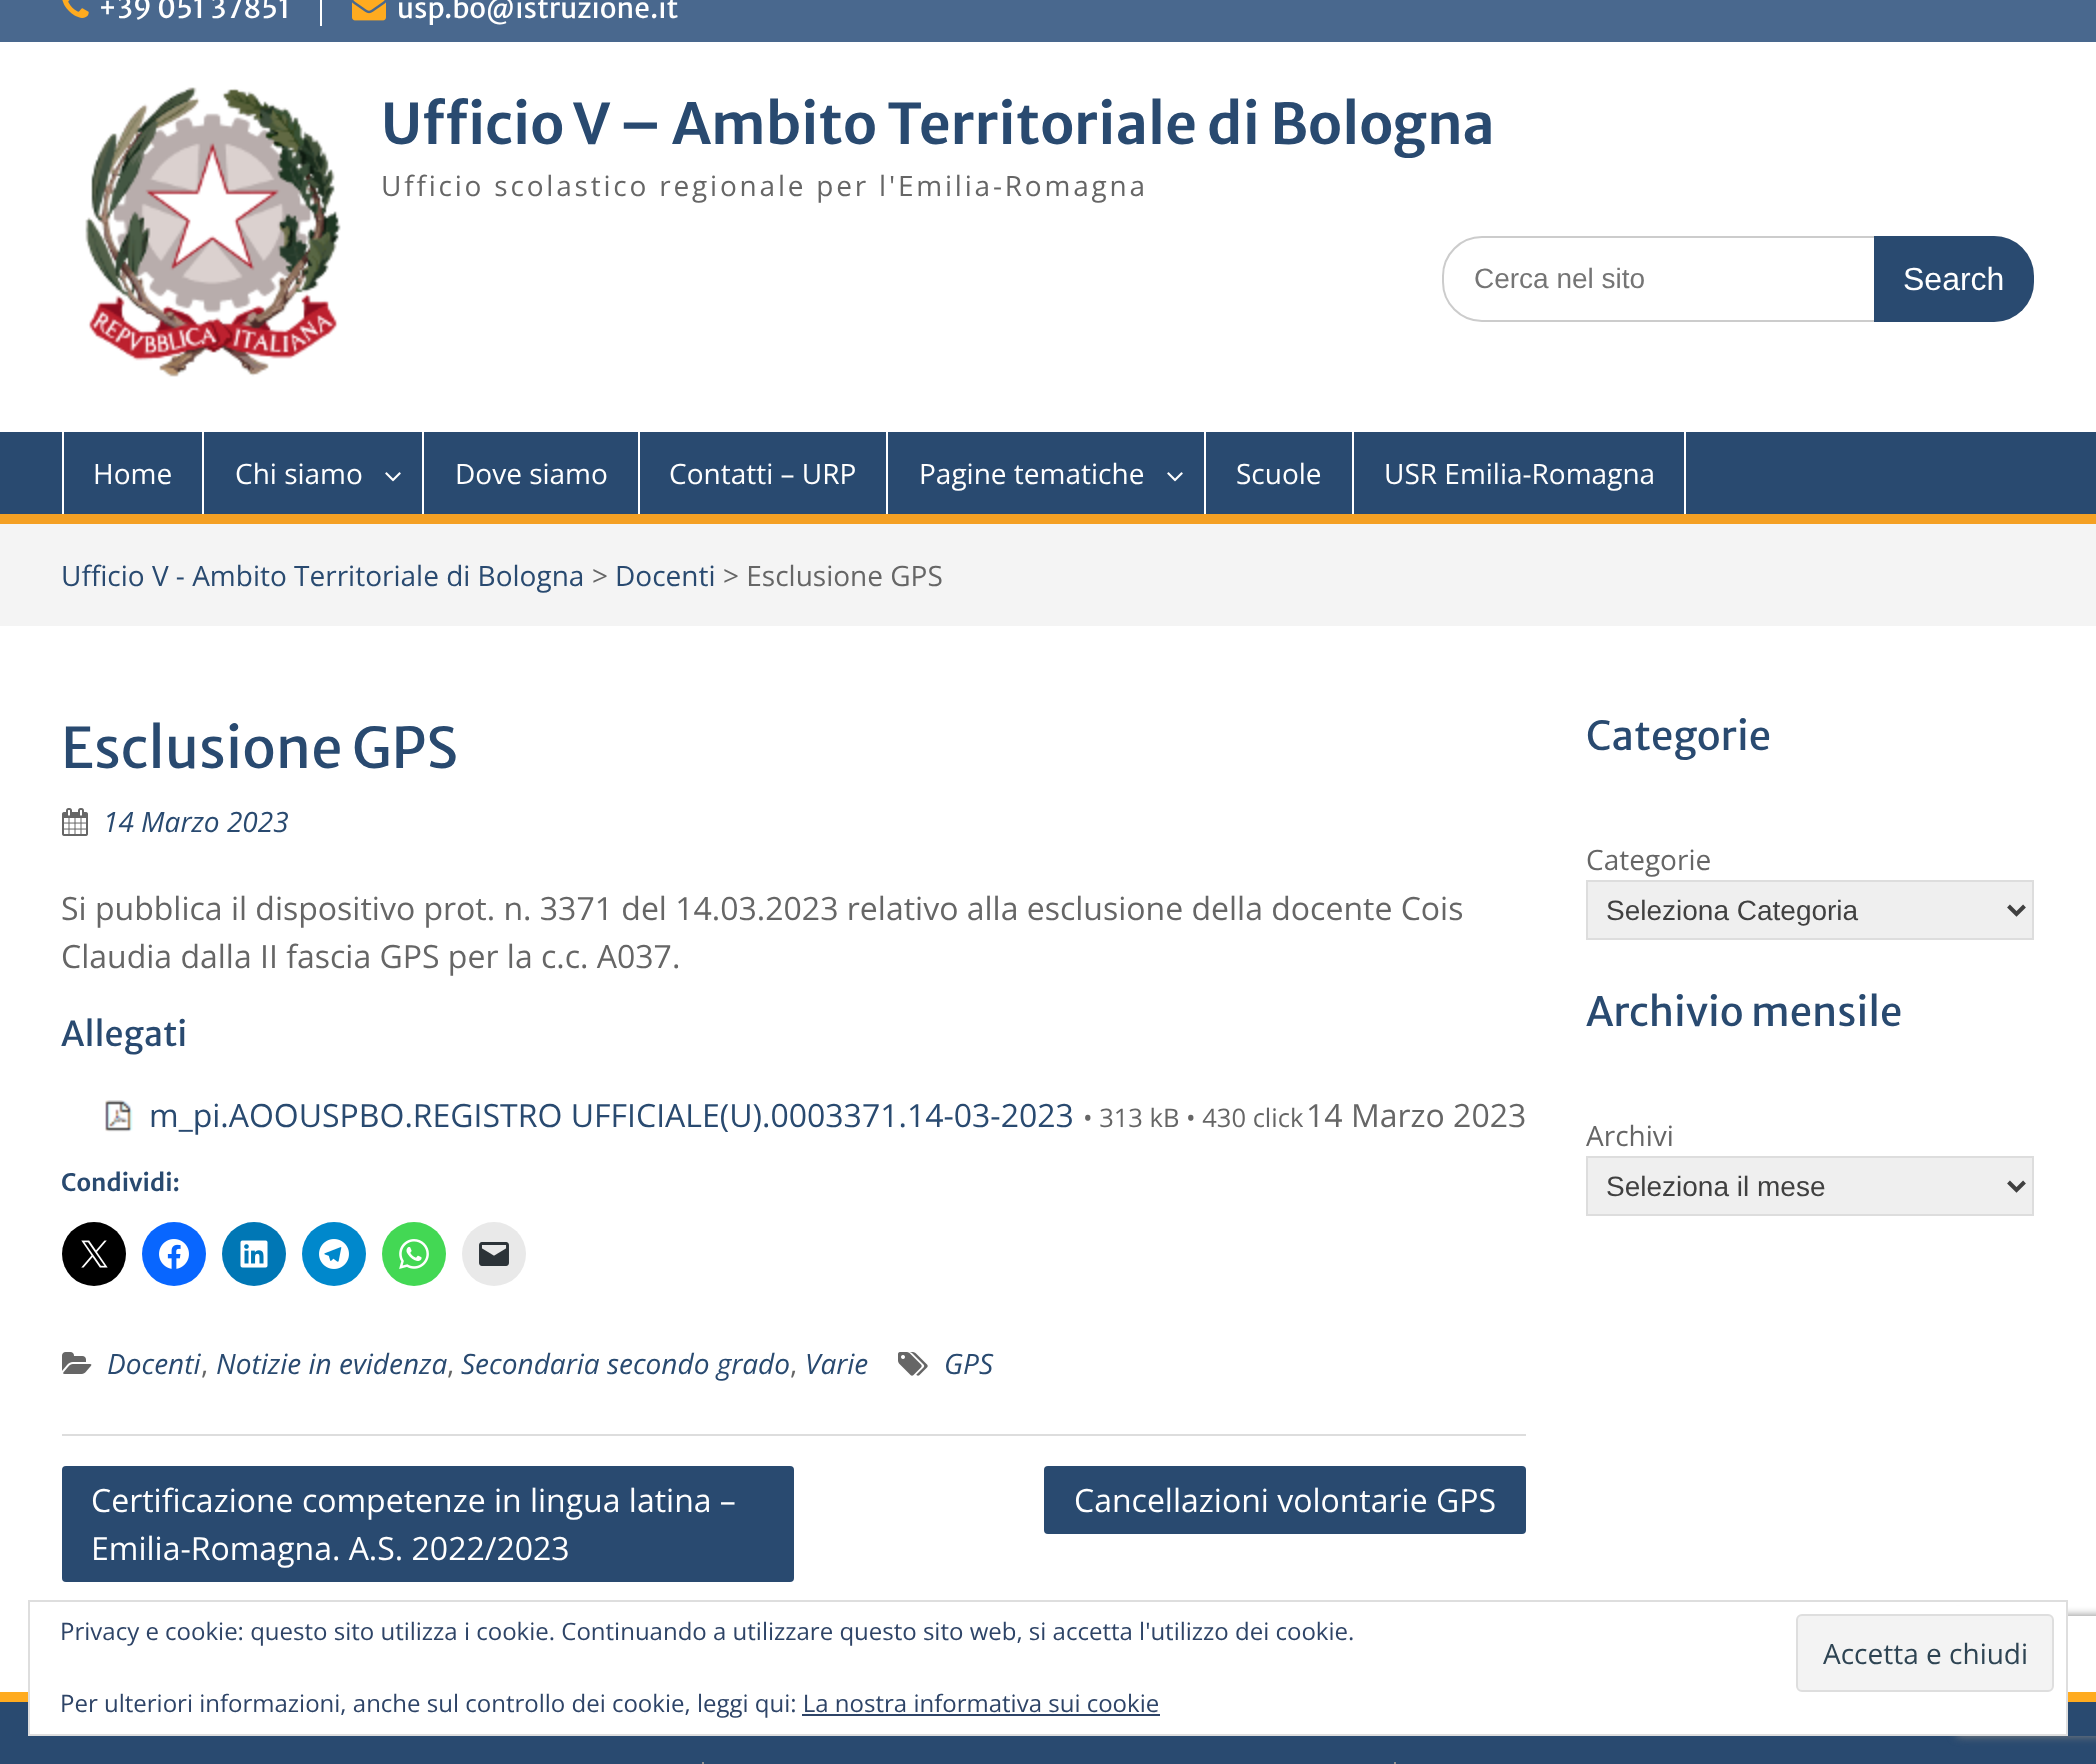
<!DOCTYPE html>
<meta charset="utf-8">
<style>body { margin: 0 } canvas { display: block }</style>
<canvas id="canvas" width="2096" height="1764"></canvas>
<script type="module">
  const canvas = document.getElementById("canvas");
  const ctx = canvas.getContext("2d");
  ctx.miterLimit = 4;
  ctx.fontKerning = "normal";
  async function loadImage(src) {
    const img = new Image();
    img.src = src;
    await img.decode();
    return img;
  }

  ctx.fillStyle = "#ffffff";
  ctx.fillRect(0, 0, 2096, 1764);
  ctx.fillStyle = "#49688e";
  ctx.fillRect(0, 0, 2096, 42);
  ctx.drawImage(await loadImage("img1.png"), 62, 0, 27, 18);
  ctx.font = "28px Merriweather Sans";
  ctx.fillStyle = "#ffffff";
  ctx.fillText("+39 051 37851", 98, 18);
  ctx.fillRect(320, 0, 2, 26);
  ctx.drawImage(await loadImage("img2.png"), 352, 0, 34, 21);
  ctx.fillText("usp.bo@istruzione.it", 397, 18);
  ctx.drawImage(await loadImage("img3.png"), 85, 87, 256, 290);
  ctx.font = "600 56px Merriweather Sans";
  ctx.fillStyle = "#294a70";
  ctx.fillText("Ufficio V – Ambito Territoriale di Bologna", 381, 144);
  ctx.letterSpacing = "2.8px";
  ctx.font = "28px Open Sans";
  ctx.fillStyle = "#666666";
  ctx.fillText("Ufficio scolastico regionale per l'Emilia-Romagna", 381, 196);
  ctx.beginPath();
  ctx.roundRect(1443, 237, 590, 84, 39);
  ctx.strokeStyle = "#cccccc";
  ctx.lineWidth = 2;
  ctx.stroke();
  ctx.letterSpacing = "0px";
  ctx.font = "28px Liberation Sans";
  ctx.fillStyle = "#757575";
  ctx.fillText("Cerca nel sito", 1474, 288);
  ctx.fillStyle = "#294a70";
  ctx.beginPath();
  ctx.roundRect(1874, 236, 160, 86, [0, 40, 40, 0]);
  ctx.fill();
  ctx.font = "32px Liberation Sans";
  ctx.fillStyle = "#ffffff";
  ctx.fillText("Search", 1903, 290);
  ctx.fillStyle = "#294a70";
  ctx.fillRect(0, 432, 2096, 82);
  ctx.fillStyle = "#f4a024";
  ctx.fillRect(0, 514, 2096, 10);
  ctx.fillStyle = "#ffffff";
  ctx.fillRect(202, 432, 2, 82);
  ctx.fillRect(62, 432, 2, 82);
  ctx.font = "28px Open Sans";
  ctx.fillText("Home", 93, 484);
  ctx.fillRect(422, 432, 2, 82);
  ctx.fillText("Chi siamo", 235, 484);
  ctx.drawImage(await loadImage("img4.png"), 385, 472, 16, 10);
  ctx.fillRect(638, 432, 2, 82);
  ctx.fillText("Dove siamo", 455, 484);
  ctx.fillRect(886, 432, 2, 82);
  ctx.fillText("Contatti – URP", 669, 484);
  ctx.fillRect(1204, 432, 2, 82);
  ctx.fillText("Pagine tematiche", 919, 484);
  ctx.drawImage(await loadImage("img4.png"), 1167, 472, 16, 10);
  ctx.fillRect(1352, 432, 2, 82);
  ctx.fillText("Scuole", 1236, 484);
  ctx.fillRect(1684, 432, 2, 82);
  ctx.fillText("USR Emilia-Romagna", 1384, 484);
  ctx.fillStyle = "#f4f4f4";
  ctx.fillRect(0, 524, 2096, 102);
  ctx.fillStyle = "#294a70";
  ctx.fillText("Ufficio V - Ambito Territoriale di Bologna", 61, 586);
  ctx.fillStyle = "#666666";
  ctx.fillText(">", 592, 586);
  ctx.fillStyle = "#294a70";
  ctx.fillText("Docenti", 615, 586);
  ctx.fillStyle = "#666666";
  ctx.fillText("> Esclusione GPS", 723, 586);
  ctx.fillStyle = "#dddddd";
  ctx.fillRect(62, 1434, 1464, 2);
  ctx.font = "56px Merriweather Sans";
  ctx.fillStyle = "#294a70";
  ctx.fillText("Esclusione GPS", 61, 768);
  ctx.drawImage(await loadImage("img5.png"), 62, 808, 26, 28);
  ctx.font = "italic 28px Open Sans";
  ctx.fillText("14 Marzo 2023", 103, 832);
  ctx.font = "32px Open Sans";
  ctx.fillStyle = "#666666";
  ctx.fillText("Si pubblica il dispositivo prot. n. 3371 del 14.03.2023 relativo alla esclusione della docente Cois", 61, 920);
  ctx.fillText("Claudia dalla II fascia GPS per la c.c. A037.", 61, 968);
  ctx.font = "34px Merriweather Sans";
  ctx.fillStyle = "#294a70";
  ctx.fillText("Allegati", 61, 1046);
  ctx.drawImage(await loadImage("img6.png"), 105, 1100, 28, 32);
  ctx.font = "32px Open Sans";
  ctx.fillText("m_pi.AOOUSPBO.REGISTRO UFFICIALE(U).0003371.14-03-2023", 149, 1127);
  ctx.font = "25.5px Open Sans";
  ctx.fillStyle = "#666666";
  ctx.fillText("• 313 kB • 430 click", 1083, 1127);
  ctx.font = "32px Open Sans";
  ctx.fillText("14 Marzo 2023", 1306, 1127);
  ctx.font = "600 24px Merriweather Sans";
  ctx.fillStyle = "#294a70";
  ctx.fillText("Condividi:", 61, 1191);
  ctx.fillStyle = "#000000";
  ctx.beginPath();
  ctx.arc(94, 1254, 32, 0, Math.PI * 2);
  ctx.fill();
  ctx.drawImage(await loadImage("img7.png"), 81, 1240, 27, 28);
  ctx.fillStyle = "#0866ff";
  ctx.beginPath();
  ctx.arc(174, 1254, 32, 0, Math.PI * 2);
  ctx.fill();
  ctx.drawImage(await loadImage("img8.png"), 159, 1239, 30, 30);
  ctx.fillStyle = "#0077b5";
  ctx.beginPath();
  ctx.arc(254, 1254, 32, 0, Math.PI * 2);
  ctx.fill();
  ctx.drawImage(await loadImage("img9.png"), 240, 1240, 28, 28);
  ctx.fillStyle = "#0088cc";
  ctx.beginPath();
  ctx.arc(334, 1254, 32, 0, Math.PI * 2);
  ctx.fill();
  ctx.drawImage(await loadImage("img10.png"), 319, 1239, 30, 30);
  ctx.fillStyle = "#43d854";
  ctx.beginPath();
  ctx.arc(414, 1254, 32, 0, Math.PI * 2);
  ctx.fill();
  ctx.drawImage(await loadImage("img11.png"), 399, 1239, 30, 30);
  ctx.fillStyle = "#e9e9e9";
  ctx.beginPath();
  ctx.arc(494, 1254, 32, 0, Math.PI * 2);
  ctx.fill();
  ctx.drawImage(await loadImage("img12.png"), 479, 1242, 30, 24);
  ctx.drawImage(await loadImage("img13.png"), 62, 1352, 30, 22);
  ctx.font = "italic 28px Open Sans";
  ctx.fillStyle = "#294a70";
  ctx.fillText("Docenti", 107, 1374);
  ctx.font = "28px Open Sans";
  ctx.fillStyle = "#666666";
  ctx.fillText(",", 201, 1374);
  ctx.font = "italic 28px Open Sans";
  ctx.fillStyle = "#294a70";
  ctx.fillText("Notizie in evidenza", 216, 1374);
  ctx.font = "28px Open Sans";
  ctx.fillStyle = "#666666";
  ctx.fillText(",", 447, 1374);
  ctx.font = "italic 28px Open Sans";
  ctx.fillStyle = "#294a70";
  ctx.fillText("Secondaria secondo grado", 461, 1374);
  ctx.font = "28px Open Sans";
  ctx.fillStyle = "#666666";
  ctx.fillText(",", 790, 1374);
  ctx.font = "italic 28px Open Sans";
  ctx.fillStyle = "#294a70";
  ctx.fillText("Varie", 805, 1374);
  ctx.drawImage(await loadImage("img14.png"), 898, 1352, 30, 24);
  ctx.fillText("GPS", 944, 1374);
  ctx.beginPath();
  ctx.roundRect(62, 1466, 732, 116, 4);
  ctx.fill();
  ctx.font = "32px Open Sans";
  ctx.fillStyle = "#ffffff";
  ctx.fillText("Certificazione competenze in lingua latina –", 91, 1512);
  ctx.fillText("Emilia-Romagna. A.S. 2022/2023", 91, 1560);
  ctx.fillStyle = "#294a70";
  ctx.beginPath();
  ctx.roundRect(1044, 1466, 482, 68, 4);
  ctx.fill();
  ctx.fillStyle = "#ffffff";
  ctx.fillText("Cancellazioni volontarie GPS", 1074, 1512);
  ctx.font = "40px Merriweather Sans";
  ctx.fillStyle = "#294a70";
  ctx.fillText("Categorie", 1586, 750);
  ctx.font = "28px Open Sans";
  ctx.fillStyle = "#666666";
  ctx.fillText("Categorie", 1586, 870);
  ctx.fillStyle = "#efefef";
  ctx.beginPath();
  ctx.rect(1587, 881, 446, 58);
  ctx.fill();
  ctx.strokeStyle = "#dddddd";
  ctx.stroke();
  ctx.beginPath();
  ctx.moveTo(2008.5, 906);
  ctx.lineTo(2016.5, 914);
  ctx.lineTo(2024.5, 906);
  ctx.strokeStyle = "#404040";
  ctx.lineWidth = 4;
  ctx.stroke();
  ctx.font = "28px Liberation Sans";
  ctx.fillStyle = "#404040";
  ctx.fillText("Seleziona Categoria", 1606, 920);
  ctx.font = "40px Merriweather Sans";
  ctx.fillStyle = "#294a70";
  ctx.fillText("Archivio mensile", 1586, 1026);
  ctx.font = "28px Open Sans";
  ctx.fillStyle = "#666666";
  ctx.fillText("Archivi", 1586, 1146);
  ctx.fillStyle = "#efefef";
  ctx.beginPath();
  ctx.rect(1587, 1157, 446, 58);
  ctx.fill();
  ctx.strokeStyle = "#dddddd";
  ctx.lineWidth = 2;
  ctx.stroke();
  ctx.beginPath();
  ctx.moveTo(2008.5, 1182);
  ctx.lineTo(2016.5, 1190);
  ctx.lineTo(2024.5, 1182);
  ctx.strokeStyle = "#404040";
  ctx.lineWidth = 4;
  ctx.stroke();
  ctx.font = "28px Liberation Sans";
  ctx.fillStyle = "#404040";
  ctx.fillText("Seleziona il mese", 1606, 1196);
  ctx.fillStyle = "#294a70";
  ctx.fillRect(0, 1702, 2096, 62);
  ctx.fillStyle = "#ffab1f";
  ctx.fillRect(0, 1692, 2096, 10);
  ctx.beginPath();
  ctx.moveTo(703, 1762);
  ctx.lineTo(703, 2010);
  ctx.strokeStyle = "#939393";
  ctx.lineWidth = 2;
  ctx.setLineDash([6, 4.08]);
  ctx.stroke();
  ctx.beginPath();
  ctx.moveTo(1395, 1762);
  ctx.lineTo(1395, 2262);
  ctx.stroke();
  ctx.save();
  ctx.beginPath();
  ctx.moveTo(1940, 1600);
  ctx.lineTo(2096, 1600);
  ctx.lineTo(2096, 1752);
  ctx.lineTo(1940, 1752);
  ctx.closePath();
  ctx.moveTo(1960, 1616);
  ctx.lineTo(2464, 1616);
  ctx.bezierCurveTo(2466, 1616, 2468, 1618, 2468, 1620);
  ctx.lineTo(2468, 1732);
  ctx.bezierCurveTo(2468, 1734, 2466, 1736, 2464, 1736);
  ctx.lineTo(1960, 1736);
  ctx.bezierCurveTo(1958, 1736, 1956, 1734, 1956, 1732);
  ctx.lineTo(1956, 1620);
  ctx.bezierCurveTo(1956, 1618, 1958, 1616, 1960, 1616);
  ctx.closePath();
  ctx.clip("evenodd");
  ctx.fillStyle = "#808080";
  ctx.filter = "blur(5px)";
  ctx.beginPath();
  ctx.roundRect(1956, 1616, 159, 120, 4);
  ctx.fill();
  ctx.filter = "none";
  ctx.restore();
  ctx.fillStyle = "#ffffff";
  ctx.fillRect(30, 1606, 2036, 128);
  ctx.strokeStyle = "#dedede";
  ctx.setLineDash([]);
  ctx.strokeRect(29, 1601, 2038, 134);
  ctx.font = "24px Open Sans";
  ctx.fillStyle = "#2e4467";
  ctx.fillText("Privacy e cookie: questo sito utilizza i cookie. Continuando a utilizzare questo sito web, si accetta l'utilizzo dei cookie.", 60, 1640);
  ctx.fillStyle = "#f3f3f3";
  ctx.beginPath();
  ctx.roundRect(1797, 1615, 256, 76, 5);
  ctx.fill();
  ctx.stroke();
  ctx.font = "28px Open Sans";
  ctx.fillStyle = "#2e4453";
  ctx.fillText("Accetta e chiudi", 1823, 1664);
  ctx.font = "24px Open Sans";
  ctx.fillStyle = "#2e4467";
  ctx.fillText("Per ulteriori informazioni, anche sul controllo dei cookie, leggi qui: La nostra informativa sui cookie", 60, 1712);
  ctx.fillRect(802, 1714, 358, 2);
</script>
